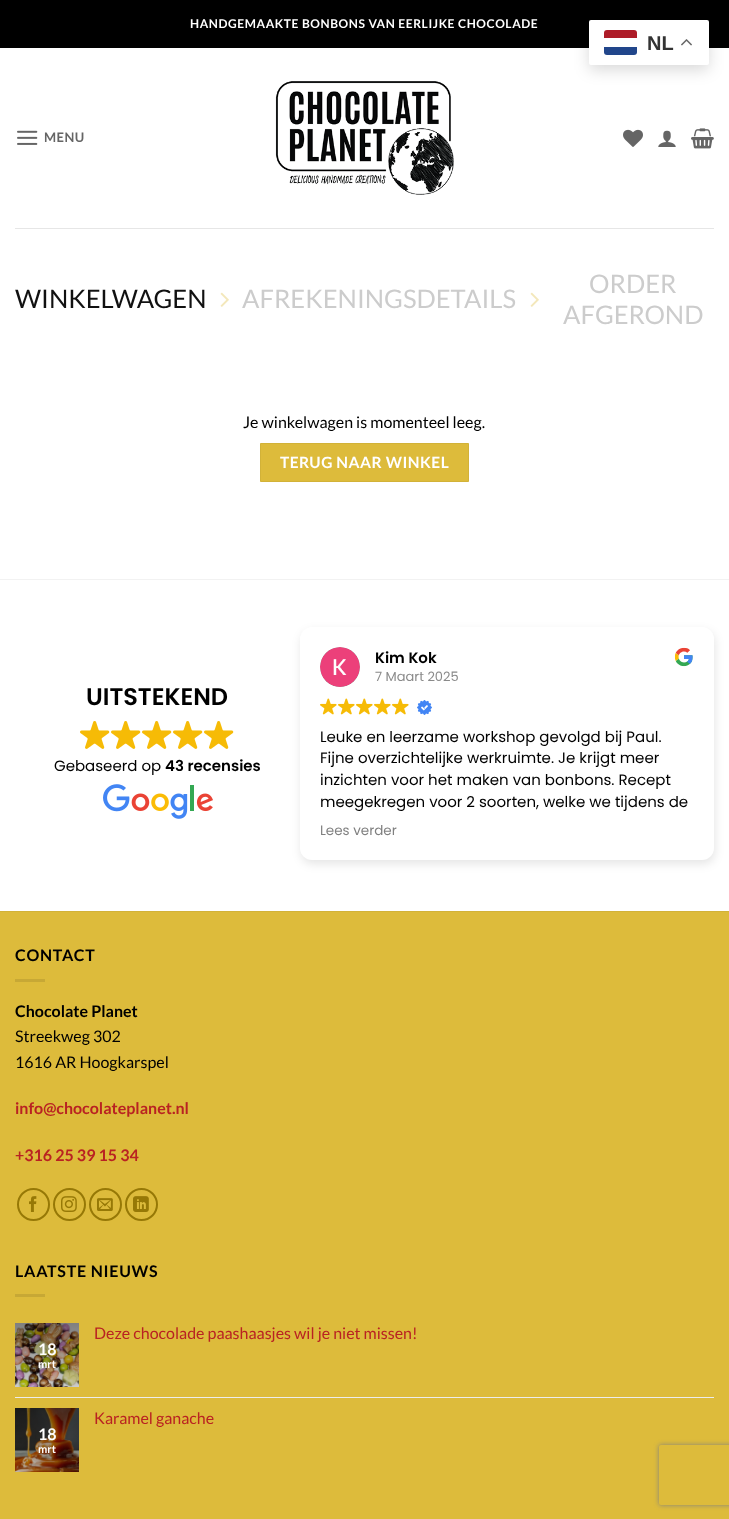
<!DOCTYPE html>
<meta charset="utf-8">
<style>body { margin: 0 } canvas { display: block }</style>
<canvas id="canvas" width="729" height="1519"></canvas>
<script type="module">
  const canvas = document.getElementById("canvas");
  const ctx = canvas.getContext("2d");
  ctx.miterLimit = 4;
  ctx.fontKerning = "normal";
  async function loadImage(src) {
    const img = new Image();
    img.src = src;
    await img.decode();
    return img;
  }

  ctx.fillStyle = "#ffffff";
  ctx.fillRect(0, 0, 729, 1519);
  ctx.fillStyle = "#000000";
  ctx.fillRect(0, 0, 729, 48);
  ctx.letterSpacing = "0.6px";
  ctx.font = "bold 12px Lato";
  ctx.fillStyle = "#ffffff";
  ctx.fillText("HANDGEMAAKTE BONBONS VAN EERLIJKE CHOCOLADE", 190, 28);
  ctx.drawImage(await loadImage("img1.png"), 17, 130, 21, 15);
  ctx.letterSpacing = "0.5px";
  ctx.font = "bold 13px Lato";
  ctx.fillStyle = "#656565";
  ctx.fillText("MENU", 44, 142);
  ctx.drawImage(await loadImage("img2.png"), 275, 81, 179, 114);
  ctx.drawImage(await loadImage("img3.png"), 623, 129, 20, 18);
  ctx.drawImage(await loadImage("img4.png"), 658, 130, 18, 17);
  ctx.drawImage(await loadImage("img5.png"), 691, 128, 23, 21);
  ctx.fillStyle = "#e6e6e6";
  ctx.fillRect(15, 228, 699, 1);
  ctx.letterSpacing = "0px";
  ctx.font = "25.6px Lato";
  ctx.fillStyle = "#111111";
  ctx.fillText("WINKELWAGEN", 15, 308);
  ctx.drawImage(await loadImage("img6.png"), 220, 292, 9, 15);
  ctx.fillStyle = "#cccccc";
  ctx.fillText("AFREKENINGSDETAILS", 242, 308);
  ctx.drawImage(await loadImage("img6.png"), 530, 292, 9, 15);
  ctx.fillText("ORDER", 589, 293);
  ctx.fillText("AFGEROND", 563, 324);
  ctx.font = "16px Lato";
  ctx.fillStyle = "#000000";
  ctx.fillText("Je winkelwagen is momenteel leeg.", 243, 428);
  ctx.fillStyle = "#ddbb3b";
  ctx.beginPath();
  ctx.rect(260.5, 443.5, 208, 38);
  ctx.fill();
  ctx.strokeStyle = "#d2b238";
  ctx.stroke();
  ctx.letterSpacing = "0.5px";
  ctx.font = "bold 15.5px Lato";
  ctx.fillStyle = "#ffffff";
  ctx.fillText("TERUG NAAR WINKEL", 280, 468);
  ctx.fillStyle = "#f2f2f2";
  ctx.fillRect(0, 579, 729, 1);
  ctx.letterSpacing = "0px";
  ctx.font = "600 24px Poppins";
  ctx.fillStyle = "#000000";
  ctx.fillText("UITSTEKEND", 86, 705);
  ctx.drawImage(await loadImage("img7.png"), 80, 721, 30, 28);
  ctx.drawImage(await loadImage("img7.png"), 111, 721, 30, 28);
  ctx.drawImage(await loadImage("img7.png"), 142, 721, 30, 28);
  ctx.drawImage(await loadImage("img7.png"), 173, 721, 30, 28);
  ctx.drawImage(await loadImage("img7.png"), 204, 721, 30, 28);
  ctx.font = "15px Poppins";
  ctx.fillText("Gebaseerd op", 54, 771);
  ctx.font = "600 15px Poppins";
  ctx.fillText("43 recensies", 165, 771);
  ctx.drawImage(await loadImage("img8.png"), 103, 784, 110, 35);
  ctx.fillStyle = "rgba(0, 0, 0, 0.1)";
  ctx.filter = "blur(5px)";
  ctx.beginPath();
  ctx.roundRect(301, 631, 414, 233, 12);
  ctx.fill();
  ctx.filter = "none";
  ctx.fillStyle = "#ffffff";
  ctx.beginPath();
  ctx.roundRect(300, 627, 414, 233, 12);
  ctx.fill();
  ctx.drawImage(await loadImage("img9.png"), 320, 647, 40, 40);
  ctx.fillStyle = "#000000";
  ctx.fillText("Kim Kok", 375, 663);
  ctx.font = "13px Poppins";
  ctx.fillStyle = "#8a8a8a";
  ctx.fillText("7 Maart 2025", 375, 681);
  ctx.drawImage(await loadImage("img10.png"), 674, 647, 19, 20);
  ctx.drawImage(await loadImage("img11.png"), 320, 698, 17, 17);
  ctx.drawImage(await loadImage("img11.png"), 338, 698, 17, 17);
  ctx.drawImage(await loadImage("img11.png"), 356, 698, 17, 17);
  ctx.drawImage(await loadImage("img11.png"), 374, 698, 17, 17);
  ctx.drawImage(await loadImage("img11.png"), 392, 698, 17, 17);
  ctx.drawImage(await loadImage("img12.png"), 417, 700, 15, 15);
  ctx.font = "15px Poppins";
  ctx.fillStyle = "#000000";
  ctx.fillText("Leuke en leerzame workshop gevolgd bij Paul.", 320, 742);
  ctx.fillText("Fijne overzichtelijke werkruimte. Je krijgt meer", 320, 763);
  ctx.fillText("inzichten voor het maken van bonbons. Recept", 320, 785);
  ctx.fillText("meegekregen voor 2 soorten, welke we tijdens de", 320, 807);
  ctx.font = "13.5px Poppins";
  ctx.fillStyle = "#808080";
  ctx.fillText("Lees verder", 320, 835);
  ctx.fillStyle = "#ddbb3b";
  ctx.fillRect(0, 912, 729, 607);
  ctx.fillStyle = "#d2b238";
  ctx.fillRect(0, 911, 729, 1);
  ctx.letterSpacing = "0.75px";
  ctx.font = "bold 16px Lato";
  ctx.fillStyle = "#000000";
  ctx.fillText("CONTACT", 15, 961);
  ctx.fillStyle = "#c7a835";
  ctx.fillRect(15, 979, 30, 3);
  ctx.letterSpacing = "0px";
  ctx.fillStyle = "#000000";
  ctx.fillText("Chocolate Planet", 15, 1017);
  ctx.font = "16px Lato";
  ctx.fillText("Streekweg 302", 15, 1042);
  ctx.fillText("1616 AR Hoogkarspel", 15, 1068);
  ctx.font = "bold 16px Lato";
  ctx.fillStyle = "#b92222";
  ctx.fillText("info@chocolateplanet.nl", 15, 1114);
  ctx.fillText("+316 25 39 15 34", 15, 1161);
  ctx.beginPath();
  ctx.arc(33.5, 1204.5, 15.5, 0, Math.PI * 2);
  ctx.strokeStyle = "#967806";
  ctx.lineWidth = 2;
  ctx.stroke();
  ctx.drawImage(await loadImage("img13.png"), 29, 1196, 8, 16);
  ctx.beginPath();
  ctx.arc(69.5, 1204.5, 15.5, 0, Math.PI * 2);
  ctx.stroke();
  ctx.drawImage(await loadImage("img14.png"), 61, 1196, 16, 16);
  ctx.beginPath();
  ctx.arc(105.5, 1204.5, 15.5, 0, Math.PI * 2);
  ctx.stroke();
  ctx.drawImage(await loadImage("img15.png"), 97, 1198, 16, 13);
  ctx.beginPath();
  ctx.arc(141.5, 1204.5, 15.5, 0, Math.PI * 2);
  ctx.stroke();
  ctx.drawImage(await loadImage("img16.png"), 133, 1196, 16, 16);
  ctx.letterSpacing = "0.75px";
  ctx.fillStyle = "#000000";
  ctx.fillText("LAATSTE NIEUWS", 15, 1277);
  ctx.fillStyle = "#c7a835";
  ctx.fillRect(15, 1294, 30, 3);
  ctx.letterSpacing = "0px";
  ctx.font = "16px Lato";
  ctx.fillStyle = "#b92222";
  ctx.fillText("Deze chocolade paashaasjes wil je niet missen!", 94, 1339);
  ctx.drawImage(await loadImage("img17.png"), 15, 1323, 64, 64);
  ctx.font = "bold 16px Lato";
  ctx.fillStyle = "#ffffff";
  ctx.fillText("18", 38, 1355);
  ctx.font = "bold 11px Lato";
  ctx.fillText("mrt", 38, 1368);
  ctx.fillStyle = "#ececec";
  ctx.fillRect(15, 1397, 699, 1);
  ctx.font = "16px Lato";
  ctx.fillStyle = "#b92222";
  ctx.fillText("Karamel ganache", 94, 1424);
  ctx.drawImage(await loadImage("img18.png"), 15, 1408, 64, 64);
  ctx.font = "bold 16px Lato";
  ctx.fillStyle = "#ffffff";
  ctx.fillText("18", 38, 1440);
  ctx.font = "bold 11px Lato";
  ctx.fillText("mrt", 38, 1453);
  ctx.fillStyle = "rgba(0, 0, 0, 0.15)";
  ctx.filter = "blur(7.5px)";
  ctx.beginPath();
  ctx.roundRect(589, 25, 120, 45, 2);
  ctx.fill();
  ctx.filter = "none";
  ctx.fillStyle = "#ffffff";
  ctx.beginPath();
  ctx.roundRect(589, 20, 120, 45, 2);
  ctx.fill();
  ctx.fillStyle = "#21468b";
  ctx.beginPath();
  ctx.roundRect(604, 47, 33, 8, [0, 0, 3, 3]);
  ctx.fill();
  ctx.fillStyle = "#ae1c28";
  ctx.beginPath();
  ctx.roundRect(604, 30, 33, 8, [3, 3, 0, 0]);
  ctx.fill();
  ctx.font = "bold 20px Liberation Sans";
  ctx.fillStyle = "#333333";
  ctx.fillText("NL", 647, 50);
  ctx.drawImage(await loadImage("img19.png"), 681, 39, 11, 7);
  ctx.save();
  ctx.beginPath();
  ctx.moveTo(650, 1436);
  ctx.lineTo(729, 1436);
  ctx.lineTo(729, 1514);
  ctx.lineTo(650, 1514);
  ctx.closePath();
  ctx.moveTo(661, 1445);
  ctx.lineTo(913, 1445);
  ctx.bezierCurveTo(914, 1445, 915, 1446, 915, 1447);
  ctx.lineTo(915, 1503);
  ctx.bezierCurveTo(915, 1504, 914, 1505, 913, 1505);
  ctx.lineTo(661, 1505);
  ctx.bezierCurveTo(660, 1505, 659, 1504, 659, 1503);
  ctx.lineTo(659, 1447);
  ctx.bezierCurveTo(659, 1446, 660, 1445, 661, 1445);
  ctx.closePath();
  ctx.clip("evenodd");
  ctx.fillStyle = "#808080";
  ctx.filter = "blur(2.5px)";
  ctx.beginPath();
  ctx.roundRect(659, 1445, 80, 60, 2);
  ctx.fill();
  ctx.filter = "none";
  ctx.restore();
</script>
